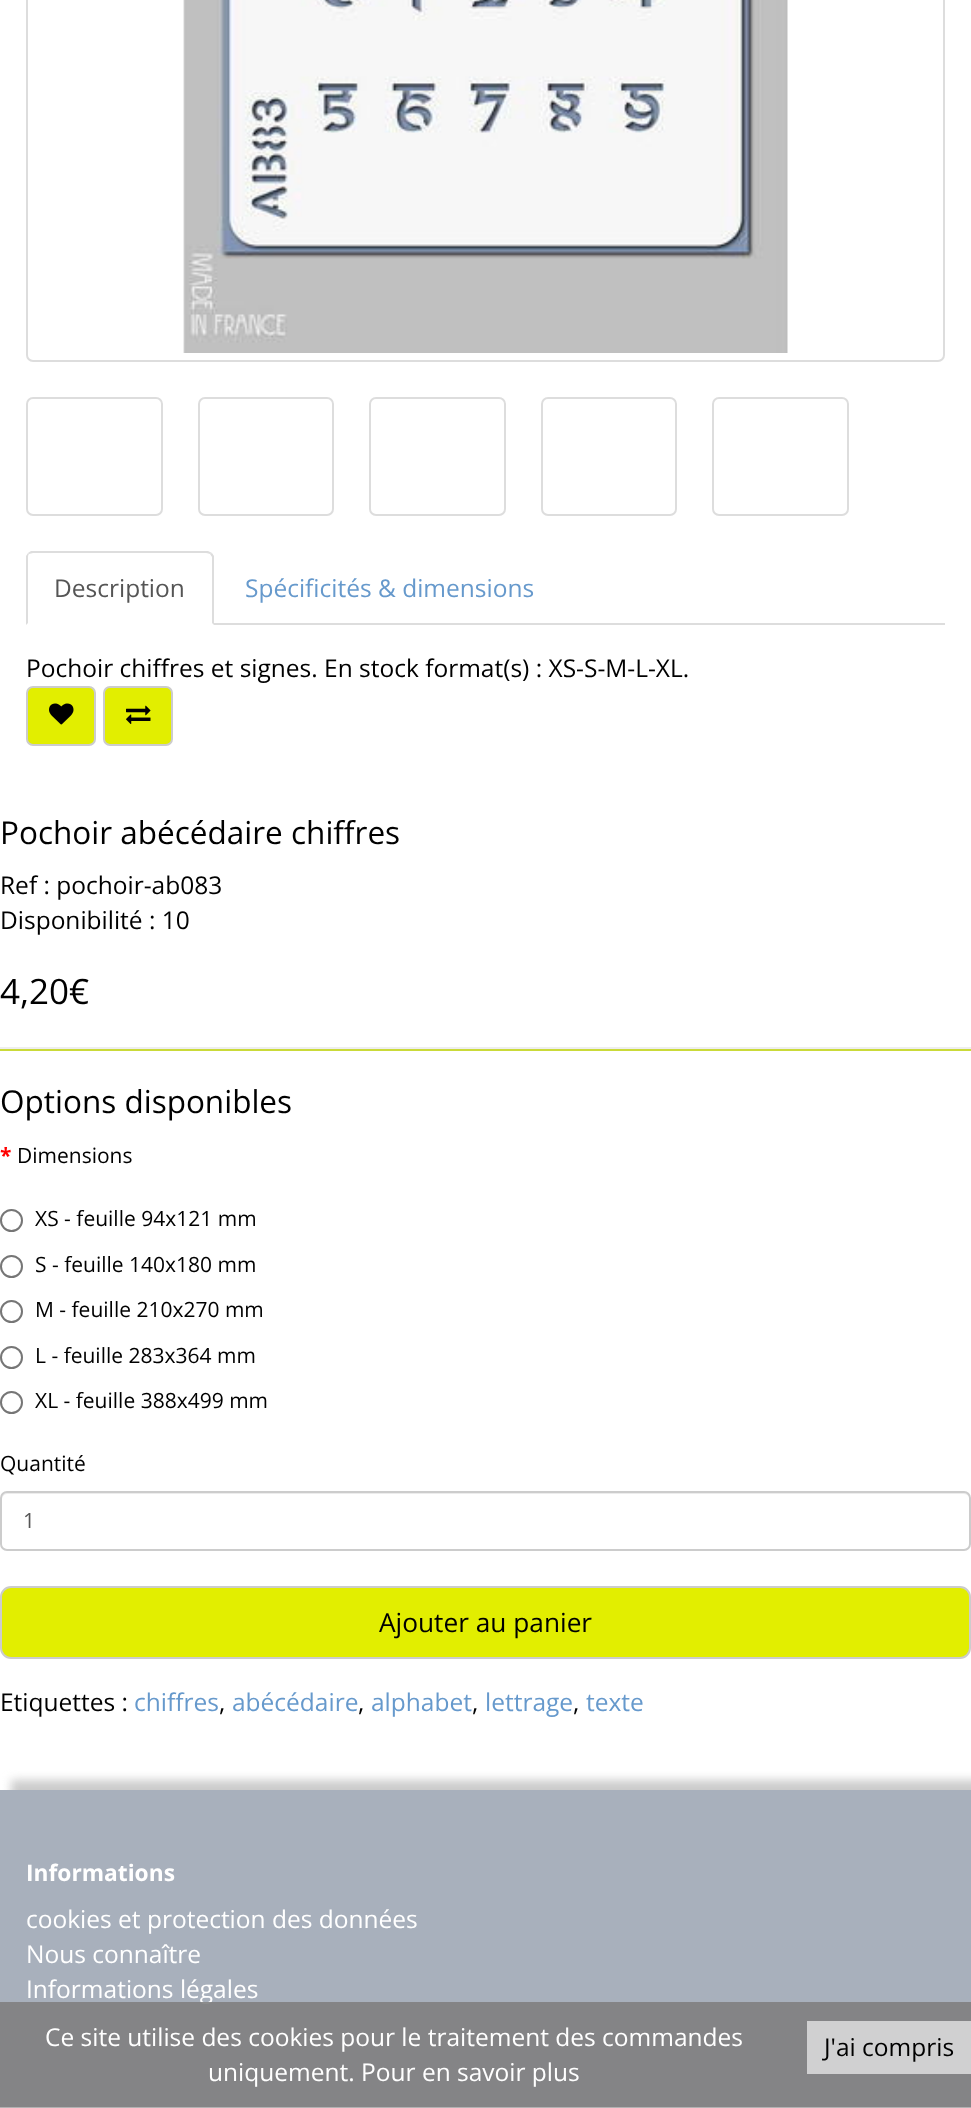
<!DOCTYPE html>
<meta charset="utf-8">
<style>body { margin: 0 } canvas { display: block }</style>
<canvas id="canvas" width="971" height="2108"></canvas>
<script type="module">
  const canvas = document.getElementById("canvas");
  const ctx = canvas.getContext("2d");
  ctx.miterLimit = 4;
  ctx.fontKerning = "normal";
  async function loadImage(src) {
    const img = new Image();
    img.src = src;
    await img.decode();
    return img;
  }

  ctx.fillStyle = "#ffffff";
  ctx.fillRect(0, 0, 971, 2108);
  ctx.beginPath();
  ctx.roundRect(27, -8, 917, 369, 6);
  ctx.strokeStyle = "#dddddd";
  ctx.lineWidth = 2;
  ctx.stroke();
  ctx.drawImage(await loadImage("img1.png"), 183, 0, 605, 353);
  ctx.beginPath();
  ctx.roundRect(27, 398, 135, 117, 6);
  ctx.stroke();
  ctx.beginPath();
  ctx.roundRect(199, 398, 134, 117, 6);
  ctx.stroke();
  ctx.beginPath();
  ctx.roundRect(370, 398, 135, 117, 6);
  ctx.stroke();
  ctx.beginPath();
  ctx.roundRect(542, 398, 134, 117, 6);
  ctx.stroke();
  ctx.beginPath();
  ctx.roundRect(713, 398, 135, 117, 6);
  ctx.stroke();
  ctx.fillStyle = "#dddddd";
  ctx.fillRect(214, 623, 731, 2);
  ctx.beginPath();
  ctx.moveTo(33, 553);
  ctx.bezierCurveTo(32, 553, 30, 554, 29, 554);
  ctx.lineTo(28, 553);
  ctx.lineTo(31, 551);
  ctx.lineTo(208, 551);
  ctx.lineTo(212, 553);
  ctx.lineTo(210, 554);
  ctx.bezierCurveTo(209, 554, 208, 553, 206, 553);
  ctx.closePath();
  ctx.fill();
  ctx.beginPath();
  ctx.moveTo(212, 553);
  ctx.lineTo(214, 556);
  ctx.lineTo(214, 625);
  ctx.lineTo(212, 623);
  ctx.lineTo(212, 557);
  ctx.lineTo(210, 554);
  ctx.closePath();
  ctx.fill();
  ctx.beginPath();
  ctx.moveTo(26, 625);
  ctx.lineTo(26, 556);
  ctx.lineTo(28, 553);
  ctx.lineTo(29, 554);
  ctx.bezierCurveTo(28, 555, 28, 556, 28, 558);
  ctx.lineTo(28, 623);
  ctx.closePath();
  ctx.fill();
  ctx.font = "24.5px Open Sans";
  ctx.fillStyle = "#555555";
  ctx.fillText("Description", 54, 597);
  ctx.fillStyle = "#6699cc";
  ctx.fillText("Spécificités & dimensions", 245, 597);
  ctx.fillStyle = "#000000";
  ctx.fillText("Pochoir chiffres et signes. En stock format(s) : XS-S-M-L-XL.", 26, 677);
  ctx.fillStyle = "#e2ee00";
  ctx.beginPath();
  ctx.roundRect(27, 687, 68, 58, 6);
  ctx.fill();
  ctx.strokeStyle = "#cccccc";
  ctx.stroke();
  ctx.drawImage(await loadImage("img2.png"), 49, 703, 25, 22);
  ctx.beginPath();
  ctx.roundRect(104, 687, 68, 58, 6);
  ctx.fill();
  ctx.stroke();
  ctx.drawImage(await loadImage("img3.png"), 126, 705, 25, 19);
  ctx.font = "31.5px Open Sans";
  ctx.fillStyle = "#000000";
  ctx.fillText("Pochoir abécédaire chiffres", 0, 844);
  ctx.font = "24.5px Open Sans";
  ctx.fillText("Ref : pochoir-ab083", 0, 894);
  ctx.fillText("Disponibilité : 10", 0, 929);
  ctx.font = "35px Open Sans";
  ctx.fillText("4,20€", 0, 1004);
  ctx.fillStyle = "#cada39";
  ctx.fillRect(0, 1049, 971, 2);
  ctx.fillStyle = "#eeeeee";
  ctx.fillRect(0, 1047, 971, 2);
  ctx.font = "31.5px Open Sans";
  ctx.fillStyle = "#000000";
  ctx.fillText("Options disponibles", 0, 1113);
  ctx.font = "bold 21px Open Sans";
  ctx.fillStyle = "#ff0000";
  ctx.fillText("*", 0, 1163);
  ctx.font = "21px Open Sans";
  ctx.fillStyle = "#000000";
  ctx.fillText("Dimensions", 17, 1163);
  ctx.beginPath();
  ctx.arc(11.5, 1220.5, 10.5, 0, Math.PI * 2);
  ctx.strokeStyle = "#767676";
  ctx.stroke();
  ctx.fillText("XS - feuille 94x121 mm", 35, 1226);
  ctx.beginPath();
  ctx.arc(11.5, 1266.5, 10.5, 0, Math.PI * 2);
  ctx.stroke();
  ctx.fillText("S - feuille 140x180 mm", 35, 1272);
  ctx.beginPath();
  ctx.arc(11.5, 1311.5, 10.5, 0, Math.PI * 2);
  ctx.stroke();
  ctx.fillText("M - feuille 210x270 mm", 35, 1317);
  ctx.beginPath();
  ctx.arc(11.5, 1357.5, 10.5, 0, Math.PI * 2);
  ctx.stroke();
  ctx.fillText("L - feuille 283x364 mm", 35, 1363);
  ctx.beginPath();
  ctx.arc(11.5, 1402.5, 10.5, 0, Math.PI * 2);
  ctx.stroke();
  ctx.fillText("XL - feuille 388x499 mm", 35, 1408);
  ctx.fillText("Quantité", 0, 1471);
  ctx.fillStyle = "#ececec";
  ctx.beginPath();
  ctx.moveTo(7, 1494);
  ctx.lineTo(964, 1494);
  ctx.bezierCurveTo(967, 1494, 970, 1497, 970, 1500);
  ctx.lineTo(970, 1498);
  ctx.bezierCurveTo(970, 1495, 968, 1493, 965, 1493);
  ctx.lineTo(7, 1493);
  ctx.bezierCurveTo(4, 1493, 2, 1495, 2, 1498);
  ctx.lineTo(2, 1500);
  ctx.bezierCurveTo(2, 1497, 4, 1494, 7, 1494);
  ctx.closePath();
  ctx.fill();
  ctx.beginPath();
  ctx.roundRect(1, 1492, 969, 58, 6);
  ctx.strokeStyle = "#cccccc";
  ctx.stroke();
  ctx.fillStyle = "#555555";
  ctx.fillText("1", 23, 1528);
  ctx.fillStyle = "#e2ee00";
  ctx.beginPath();
  ctx.roundRect(1, 1587, 969, 71, 10);
  ctx.fill();
  ctx.stroke();
  ctx.font = "26.25px Open Sans";
  ctx.fillStyle = "#000000";
  ctx.fillText("Ajouter au panier", 379, 1632);
  ctx.font = "24.5px Open Sans";
  ctx.fillText("Etiquettes :", 0, 1711);
  ctx.fillStyle = "#6699cc";
  ctx.fillText("chiffres", 134, 1711);
  ctx.fillStyle = "#000000";
  ctx.fillText(",", 219, 1711);
  ctx.fillStyle = "#6699cc";
  ctx.fillText("abécédaire", 232, 1711);
  ctx.fillStyle = "#000000";
  ctx.fillText(",", 358, 1711);
  ctx.fillStyle = "#6699cc";
  ctx.fillText("alphabet", 371, 1711);
  ctx.fillStyle = "#000000";
  ctx.fillText(",", 472, 1711);
  ctx.fillStyle = "#6699cc";
  ctx.fillText("lettrage", 485, 1711);
  ctx.fillStyle = "#000000";
  ctx.fillText(",", 573, 1711);
  ctx.fillStyle = "#6699cc";
  ctx.fillText("texte", 586, 1711);
  ctx.fillStyle = "#cccccc";
  ctx.filter = "blur(5px)";
  ctx.beginPath();
  ctx.rect(11, 1780, 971, 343);
  ctx.fill();
  ctx.filter = "none";
  ctx.fillStyle = "#a8b0bc";
  ctx.fillRect(0, 1790, 971, 317);
  ctx.font = "bold 22.75px Open Sans";
  ctx.fillStyle = "#ffffff";
  ctx.fillText("Informations", 26, 1881);
  ctx.font = "24.5px Open Sans";
  ctx.fillText("cookies et protection des données", 26, 1928);
  ctx.fillText("Nous connaître", 26, 1963);
  ctx.fillText("Informations légales", 26, 1998);
  ctx.fillStyle = "rgba(128, 128, 128, 0.9)";
  ctx.fillRect(0, 2002, 971, 105);
  ctx.fillStyle = "#b2b2b3";
  ctx.fillRect(0, 2107, 971, 1);
  ctx.fillStyle = "#ffffff";
  ctx.fillText("Ce site utilise des cookies pour le traitement des commandes", 45, 2046);
  ctx.fillStyle = "#d0d0d1";
  ctx.fillRect(807, 2021, 164, 53);
  ctx.fillStyle = "#000000";
  ctx.fillText("J'ai compris", 824, 2056);
  ctx.fillStyle = "#ffffff";
  ctx.fillText("uniquement. Pour en savoir plus", 208, 2081);
</script>
